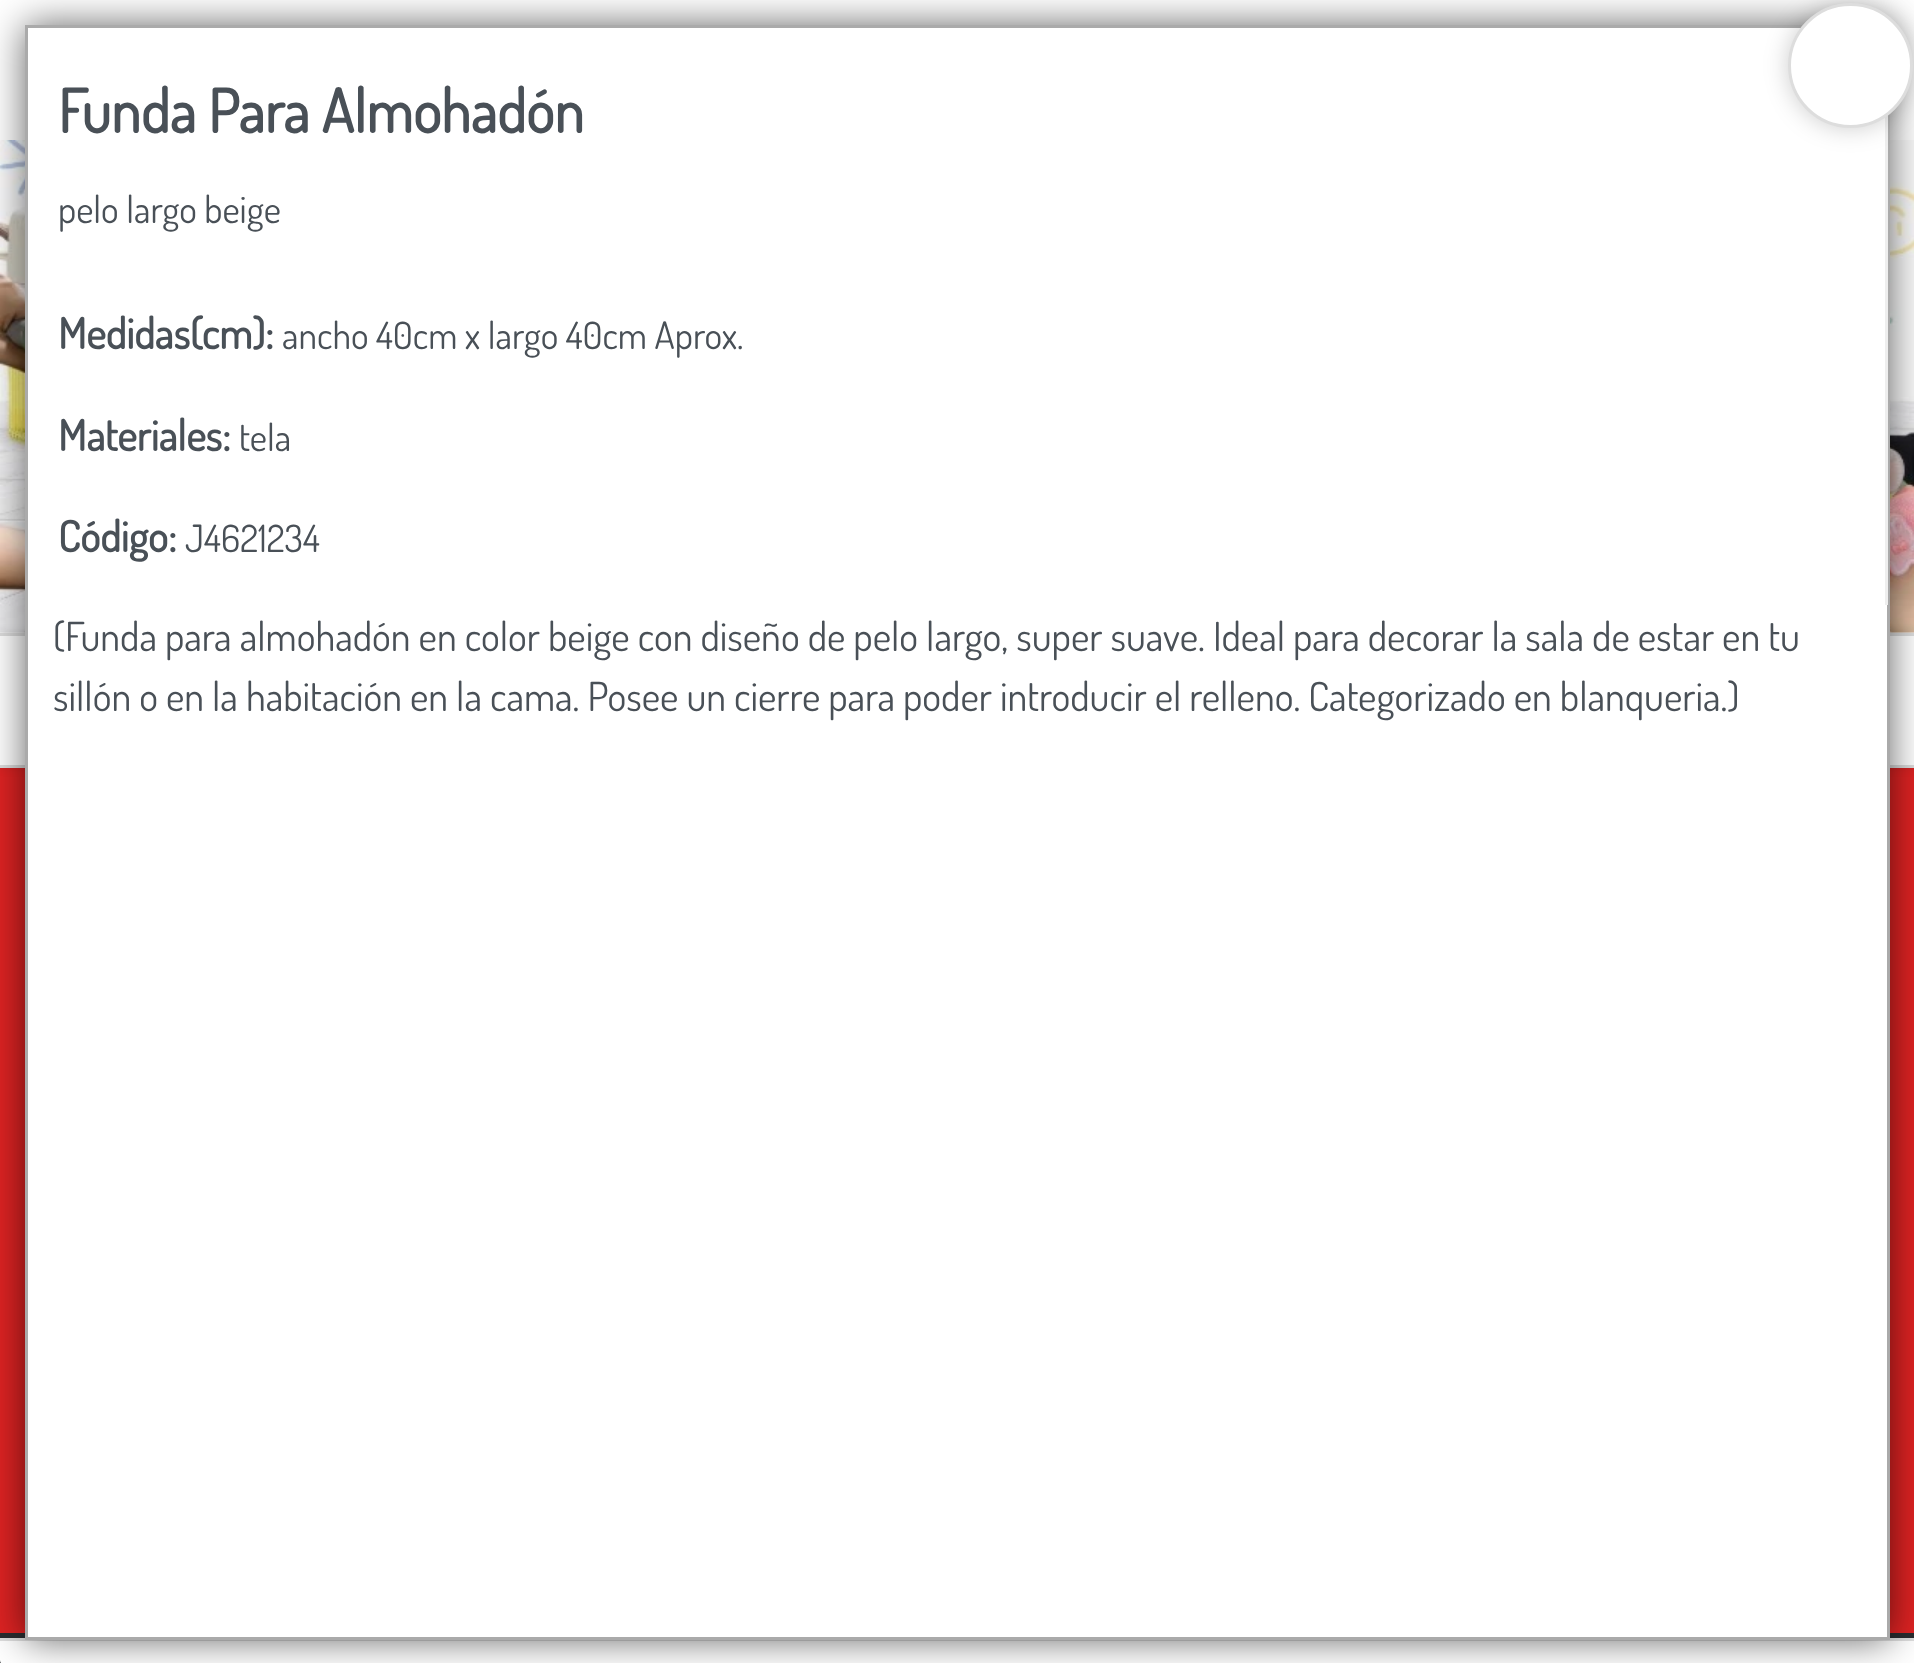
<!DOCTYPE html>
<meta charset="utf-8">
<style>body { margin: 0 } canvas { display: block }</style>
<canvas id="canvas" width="1914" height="1663"></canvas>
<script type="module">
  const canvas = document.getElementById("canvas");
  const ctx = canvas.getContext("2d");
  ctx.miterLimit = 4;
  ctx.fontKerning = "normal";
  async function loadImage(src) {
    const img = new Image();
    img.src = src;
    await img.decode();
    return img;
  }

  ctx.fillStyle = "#df2323";
  ctx.fillRect(0, 0, 1914, 1663);
  ctx.fillStyle = "#ffffff";
  ctx.fillRect(0, 0, 1914, 140);
  ctx.fillRect(0, 632, 1914, 1);
  ctx.drawImage(await loadImage("img1.png"), 0, 140, 1914, 493);
  ctx.fillStyle = "rgba(0, 0, 0, 0.1)";
  ctx.filter = "blur(5px)";
  ctx.beginPath();
  ctx.rect(0, 633, 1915, 135);
  ctx.fill();
  ctx.filter = "none";
  ctx.fillStyle = "#ffffff";
  ctx.fillRect(0, 636, 1914, 129);
  ctx.fillStyle = "#dddddd";
  ctx.fillRect(0, 633, 1914, 3);
  ctx.fillRect(0, 765, 1914, 3);
  ctx.fillStyle = "#292c2f";
  ctx.fillRect(0, 1633, 1914, 30);
  ctx.fillStyle = "#ffffff";
  ctx.beginPath();
  ctx.moveTo(0, 1638);
  ctx.lineTo(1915, 1638);
  ctx.lineTo(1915, 1660);
  ctx.bezierCurveTo(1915, 1663, 1913, 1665, 1910, 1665);
  ctx.lineTo(5, 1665);
  ctx.bezierCurveTo(2, 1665, 0, 1663, 0, 1660);
  ctx.closePath();
  ctx.fill();
  ctx.fillStyle = "#dddddd";
  ctx.fillRect(0, 1638, 1914, 3);
  ctx.fillStyle = "rgba(0, 0, 0, 0.6)";
  ctx.filter = "blur(19px)";
  ctx.beginPath();
  ctx.rect(25, 25, 1865, 1615);
  ctx.fill();
  ctx.filter = "none";
  ctx.fillStyle = "#ffffff";
  ctx.beginPath();
  ctx.rect(26.5, 26.5, 1862, 1612);
  ctx.fill();
  ctx.strokeStyle = "#aaaaaa";
  ctx.lineWidth = 3;
  ctx.stroke();
  ctx.fillStyle = "#eeeeee";
  ctx.fillRect(1885, 115, 3, 490);
  ctx.font = "bold 60px Dosis";
  ctx.fillStyle = "#495057";
  ctx.fillText("Funda Para Almohadón", 58, 133);
  ctx.font = "37.5px Dosis";
  ctx.fillText("pelo largo beige", 58, 223);
  ctx.font = "bold 42.5px Dosis";
  ctx.fillText("Medidas(cm):", 58, 349);
  ctx.font = "37.5px Dosis";
  ctx.fillText("ancho 40cm x largo 40cm Aprox.", 282, 349);
  ctx.font = "bold 42.5px Dosis";
  ctx.fillText("Materiales:", 58, 451);
  ctx.font = "37.5px Dosis";
  ctx.fillText("tela", 239, 451);
  ctx.font = "bold 42.5px Dosis";
  ctx.fillText("Código:", 58, 552);
  ctx.font = "37.5px Dosis";
  ctx.fillText("J4621234", 185, 552);
  ctx.font = "40px Dosis";
  ctx.fillText("(Funda para almohadón en color beige con diseño de pelo largo, super suave. Ideal para decorar la sala de estar en tu", 53, 651);
  ctx.fillText("sillón o en la habitación en la cama. Posee un cierre para poder introducir el relleno. Categorizado en blanqueria.)", 53, 711);
  ctx.fillStyle = "rgba(0, 0, 0, 0.2)";
  ctx.filter = "blur(12.5px)";
  ctx.beginPath();
  ctx.roundRect(1788, 3, 125, 125, 62.5);
  ctx.fill();
  ctx.filter = "none";
  ctx.fillStyle = "#ffffff";
  ctx.beginPath();
  ctx.arc(1850.5, 65.5, 61, 0, Math.PI * 2);
  ctx.fill();
  ctx.strokeStyle = "#dddddd";
  ctx.stroke();
</script>
